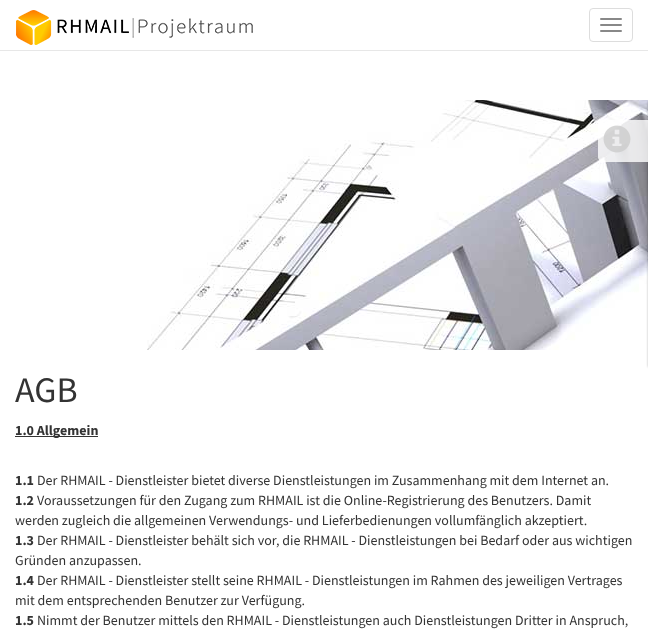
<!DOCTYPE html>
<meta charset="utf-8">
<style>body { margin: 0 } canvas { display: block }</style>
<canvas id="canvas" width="648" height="642"></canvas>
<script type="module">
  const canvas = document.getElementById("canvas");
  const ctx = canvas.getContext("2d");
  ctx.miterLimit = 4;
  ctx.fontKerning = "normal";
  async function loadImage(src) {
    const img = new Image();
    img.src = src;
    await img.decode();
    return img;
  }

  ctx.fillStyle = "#ffffff";
  ctx.fillRect(0, 0, 648, 642);
  ctx.fillStyle = "#e7e7e7";
  ctx.fillRect(0, 50, 648, 1);
  ctx.drawImage(await loadImage("img1.png"), 16, 10, 237, 35);
  ctx.beginPath();
  ctx.roundRect(589.5, 8.5, 43, 33, 3.5);
  ctx.strokeStyle = "#dddddd";
  ctx.stroke();
  ctx.fillStyle = "#888888";
  ctx.beginPath();
  ctx.roundRect(600, 18, 22, 2, 1);
  ctx.fill();
  ctx.beginPath();
  ctx.roundRect(600, 24, 22, 2, 1);
  ctx.fill();
  ctx.beginPath();
  ctx.roundRect(600, 30, 22, 2, 1);
  ctx.fill();
  ctx.drawImage(await loadImage("img2.png"), 147, 100, 501, 250);
  ctx.fillStyle = "rgba(0, 0, 0, 0.27)";
  ctx.filter = "blur(1px)";
  ctx.beginPath();
  ctx.rect(648, 102, 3, 265);
  ctx.fill();
  ctx.filter = "none";
  ctx.fillStyle = "rgba(255, 255, 255, 0.8)";
  ctx.beginPath();
  ctx.roundRect(598, 120, 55, 42, 5);
  ctx.fill();
  ctx.drawImage(await loadImage("img3.png"), 603, 125, 28, 28);
  ctx.font = "36px Source Sans Pro";
  ctx.fillStyle = "#333333";
  ctx.fillText("AGB", 15, 402);
  ctx.fillRect(15, 436, 83, 1);
  ctx.font = "bold 14px Source Sans Pro";
  ctx.fillText("1.0 Allgemein", 15, 435);
  ctx.fillText("1.1", 15, 485);
  ctx.font = "14px Source Sans Pro";
  ctx.fillText("Der RHMAIL - Dienstleister bietet diverse Dienstleistungen im Zusammenhang mit dem Internet an.", 37, 485);
  ctx.font = "bold 14px Source Sans Pro";
  ctx.fillText("1.2", 15, 505);
  ctx.font = "14px Source Sans Pro";
  ctx.fillText("Voraussetzungen für den Zugang zum RHMAIL ist die Online-Registrierung des Benutzers. Damit", 37, 505);
  ctx.fillText("werden zugleich die allgemeinen Verwendungs- und Lieferbedienungen vollumfänglich akzeptiert.", 15, 525);
  ctx.font = "bold 14px Source Sans Pro";
  ctx.fillText("1.3", 15, 545);
  ctx.font = "14px Source Sans Pro";
  ctx.fillText("Der RHMAIL - Dienstleister behält sich vor, die RHMAIL - Dienstleistungen bei Bedarf oder aus wichtigen", 37, 545);
  ctx.fillText("Gründen anzupassen.", 15, 565);
  ctx.font = "bold 14px Source Sans Pro";
  ctx.fillText("1.4", 15, 585);
  ctx.font = "14px Source Sans Pro";
  ctx.fillText("Der RHMAIL - Dienstleister stellt seine RHMAIL - Dienstleistungen im Rahmen des jeweiligen Vertrages", 37, 585);
  ctx.fillText("mit dem entsprechenden Benutzer zur Verfügung.", 15, 605);
  ctx.font = "bold 14px Source Sans Pro";
  ctx.fillText("1.5", 15, 625);
  ctx.font = "14px Source Sans Pro";
  ctx.fillText("Nimmt der Benutzer mittels den RHMAIL - Dienstleistungen auch Dienstleistungen Dritter in Anspruch,", 37, 625);
</script>
